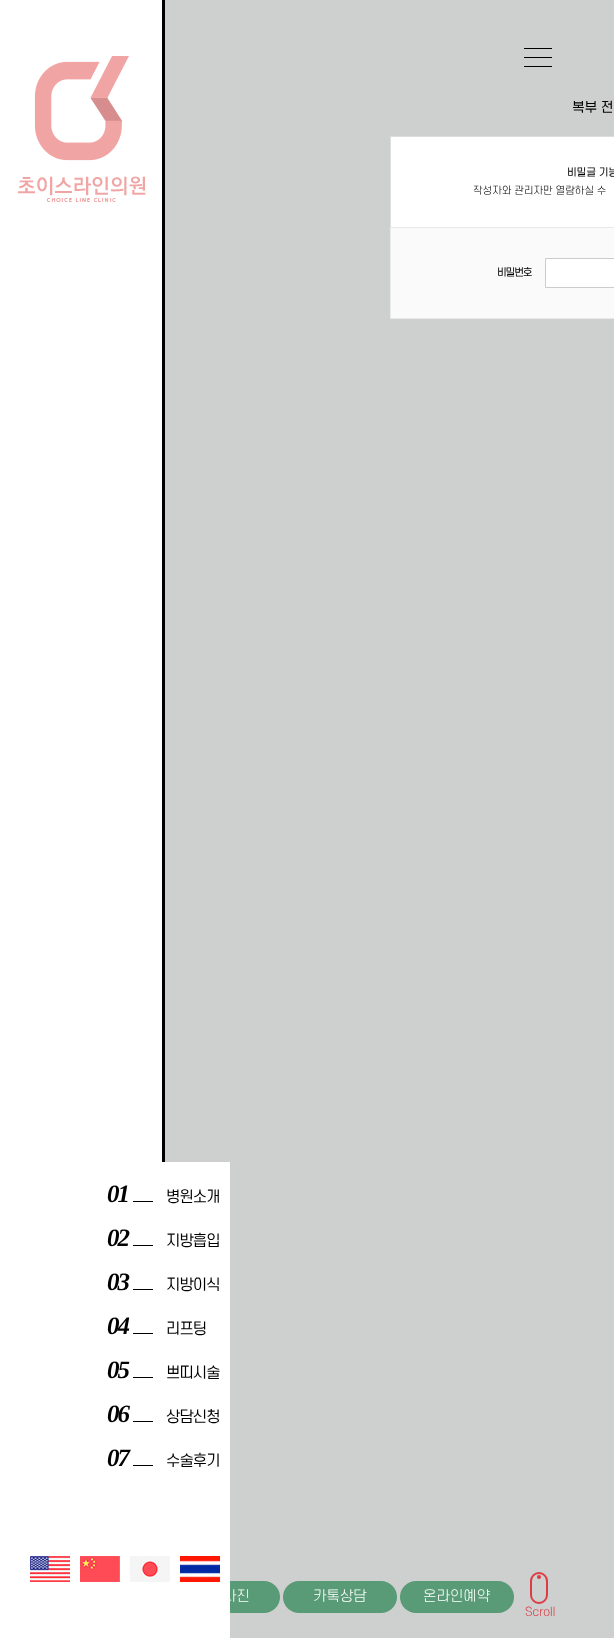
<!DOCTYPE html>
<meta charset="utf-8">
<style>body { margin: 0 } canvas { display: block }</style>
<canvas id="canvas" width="614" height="1638"></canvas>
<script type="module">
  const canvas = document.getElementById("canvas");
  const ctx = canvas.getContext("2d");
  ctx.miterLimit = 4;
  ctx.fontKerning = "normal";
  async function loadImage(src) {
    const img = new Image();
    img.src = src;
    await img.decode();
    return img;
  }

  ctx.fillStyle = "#ced0cf";
  ctx.fillRect(0, 0, 614, 1638);
  ctx.fillStyle = "#000000";
  ctx.fillRect(524, 48, 28, 1);
  ctx.fillRect(524, 57, 28, 1);
  ctx.fillRect(524, 66, 28, 1);
  ctx.fillStyle = "#ffffff";
  ctx.fillRect(0, 0, 162, 1162);
  ctx.fillStyle = "#000000";
  ctx.fillRect(162, 0, 3, 1162);
  ctx.drawImage(await loadImage("img1.png"), 18, 56, 128, 146);
  ctx.font = "bold 13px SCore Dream";
  ctx.fillText("복부 전", 572, 112);
  ctx.fillStyle = "#ffffff";
  ctx.fillRect(391, 137, 223, 90);
  ctx.fillStyle = "#dddddd";
  ctx.fillRect(390, 136, 224, 1);
  ctx.fillRect(390, 136, 1, 91);
  ctx.font = "bold 10px SCore Dream";
  ctx.fillStyle = "#000000";
  ctx.fillText("비밀글 기능", 567, 176);
  ctx.font = "300 10px SCore Dream";
  ctx.fillText("작성자와 관리자만 열람하실 수", 473, 194);
  ctx.fillStyle = "#fafafa";
  ctx.beginPath();
  ctx.rect(390.5, 227.5, 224, 91);
  ctx.fill();
  ctx.strokeStyle = "#e9e9e9";
  ctx.stroke();
  ctx.letterSpacing = "-1px";
  ctx.font = "bold 10px SCore Dream";
  ctx.fillStyle = "#000000";
  ctx.fillText("비밀번호", 497, 276);
  ctx.fillStyle = "#ffffff";
  ctx.beginPath();
  ctx.rect(545.5, 258.5, 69, 29);
  ctx.fill();
  ctx.strokeStyle = "#cccccc";
  ctx.stroke();
  ctx.fillStyle = "#589b76";
  ctx.beginPath();
  ctx.roundRect(166, 1581, 114, 32, 16);
  ctx.fill();
  ctx.fillStyle = "#ffffff";
  ctx.fillRect(0, 1162, 230, 476);
  ctx.letterSpacing = "-2px";
  ctx.font = "italic bold 25px Liberation Serif";
  ctx.fillStyle = "#000000";
  ctx.fillText("01", 107, 1202);
  ctx.fillRect(133, 1201, 20, 1);
  ctx.letterSpacing = "-1px";
  ctx.font = "15px SCore Dream";
  ctx.fillText("병원소개", 166, 1202);
  ctx.letterSpacing = "-2px";
  ctx.font = "italic bold 25px Liberation Serif";
  ctx.fillText("02", 107, 1246);
  ctx.fillRect(133, 1245, 20, 1);
  ctx.letterSpacing = "-1px";
  ctx.font = "15px SCore Dream";
  ctx.fillText("지방흡입", 166, 1246);
  ctx.letterSpacing = "-2px";
  ctx.font = "italic bold 25px Liberation Serif";
  ctx.fillText("03", 107, 1290);
  ctx.fillRect(133, 1289, 20, 1);
  ctx.letterSpacing = "-1px";
  ctx.font = "15px SCore Dream";
  ctx.fillText("지방이식", 166, 1290);
  ctx.letterSpacing = "-2px";
  ctx.font = "italic bold 25px Liberation Serif";
  ctx.fillText("04", 107, 1334);
  ctx.fillRect(133, 1333, 20, 1);
  ctx.letterSpacing = "-1px";
  ctx.font = "15px SCore Dream";
  ctx.fillText("리프팅", 166, 1334);
  ctx.letterSpacing = "-2px";
  ctx.font = "italic bold 25px Liberation Serif";
  ctx.fillText("05", 107, 1378);
  ctx.fillRect(133, 1377, 20, 1);
  ctx.letterSpacing = "-1px";
  ctx.font = "15px SCore Dream";
  ctx.fillText("쁘띠시술", 166, 1378);
  ctx.letterSpacing = "-2px";
  ctx.font = "italic bold 25px Liberation Serif";
  ctx.fillText("06", 107, 1422);
  ctx.fillRect(133, 1421, 20, 1);
  ctx.letterSpacing = "-1px";
  ctx.font = "15px SCore Dream";
  ctx.fillText("상담신청", 166, 1422);
  ctx.letterSpacing = "-2px";
  ctx.font = "italic bold 25px Liberation Serif";
  ctx.fillText("07", 107, 1466);
  ctx.fillRect(133, 1465, 20, 1);
  ctx.letterSpacing = "-1px";
  ctx.font = "15px SCore Dream";
  ctx.fillText("수술후기", 166, 1466);
  ctx.drawImage(await loadImage("img2.png"), 30, 1556, 40, 26);
  ctx.drawImage(await loadImage("img3.png"), 80, 1556, 40, 26);
  ctx.drawImage(await loadImage("img4.png"), 130, 1556, 40, 26);
  ctx.drawImage(await loadImage("img5.png"), 180, 1556, 40, 26);
  ctx.letterSpacing = "0px";
  ctx.font = "300 14px SCore Dream";
  ctx.fillStyle = "#ffffff";
  ctx.fillText("사진", 223, 1601);
  ctx.fillStyle = "#589b76";
  ctx.beginPath();
  ctx.roundRect(283, 1581, 114, 32, 16);
  ctx.fill();
  ctx.fillStyle = "#ffffff";
  ctx.fillText("카톡상담", 313, 1601);
  ctx.fillStyle = "#589b76";
  ctx.beginPath();
  ctx.roundRect(400, 1581, 114, 32, 16);
  ctx.fill();
  ctx.fillStyle = "#ffffff";
  ctx.fillText("온라인예약", 423, 1601);
  ctx.beginPath();
  ctx.roundRect(531, 1573, 16, 30, 8);
  ctx.strokeStyle = "#dc3c43";
  ctx.lineWidth = 2;
  ctx.stroke();
  ctx.fillStyle = "#dc3c43";
  ctx.beginPath();
  ctx.arc(539, 1577, 2, 0, Math.PI * 2);
  ctx.fill();
  ctx.font = "300 12px SCore Dream";
  ctx.fillText("Scroll", 525, 1616);
</script>
